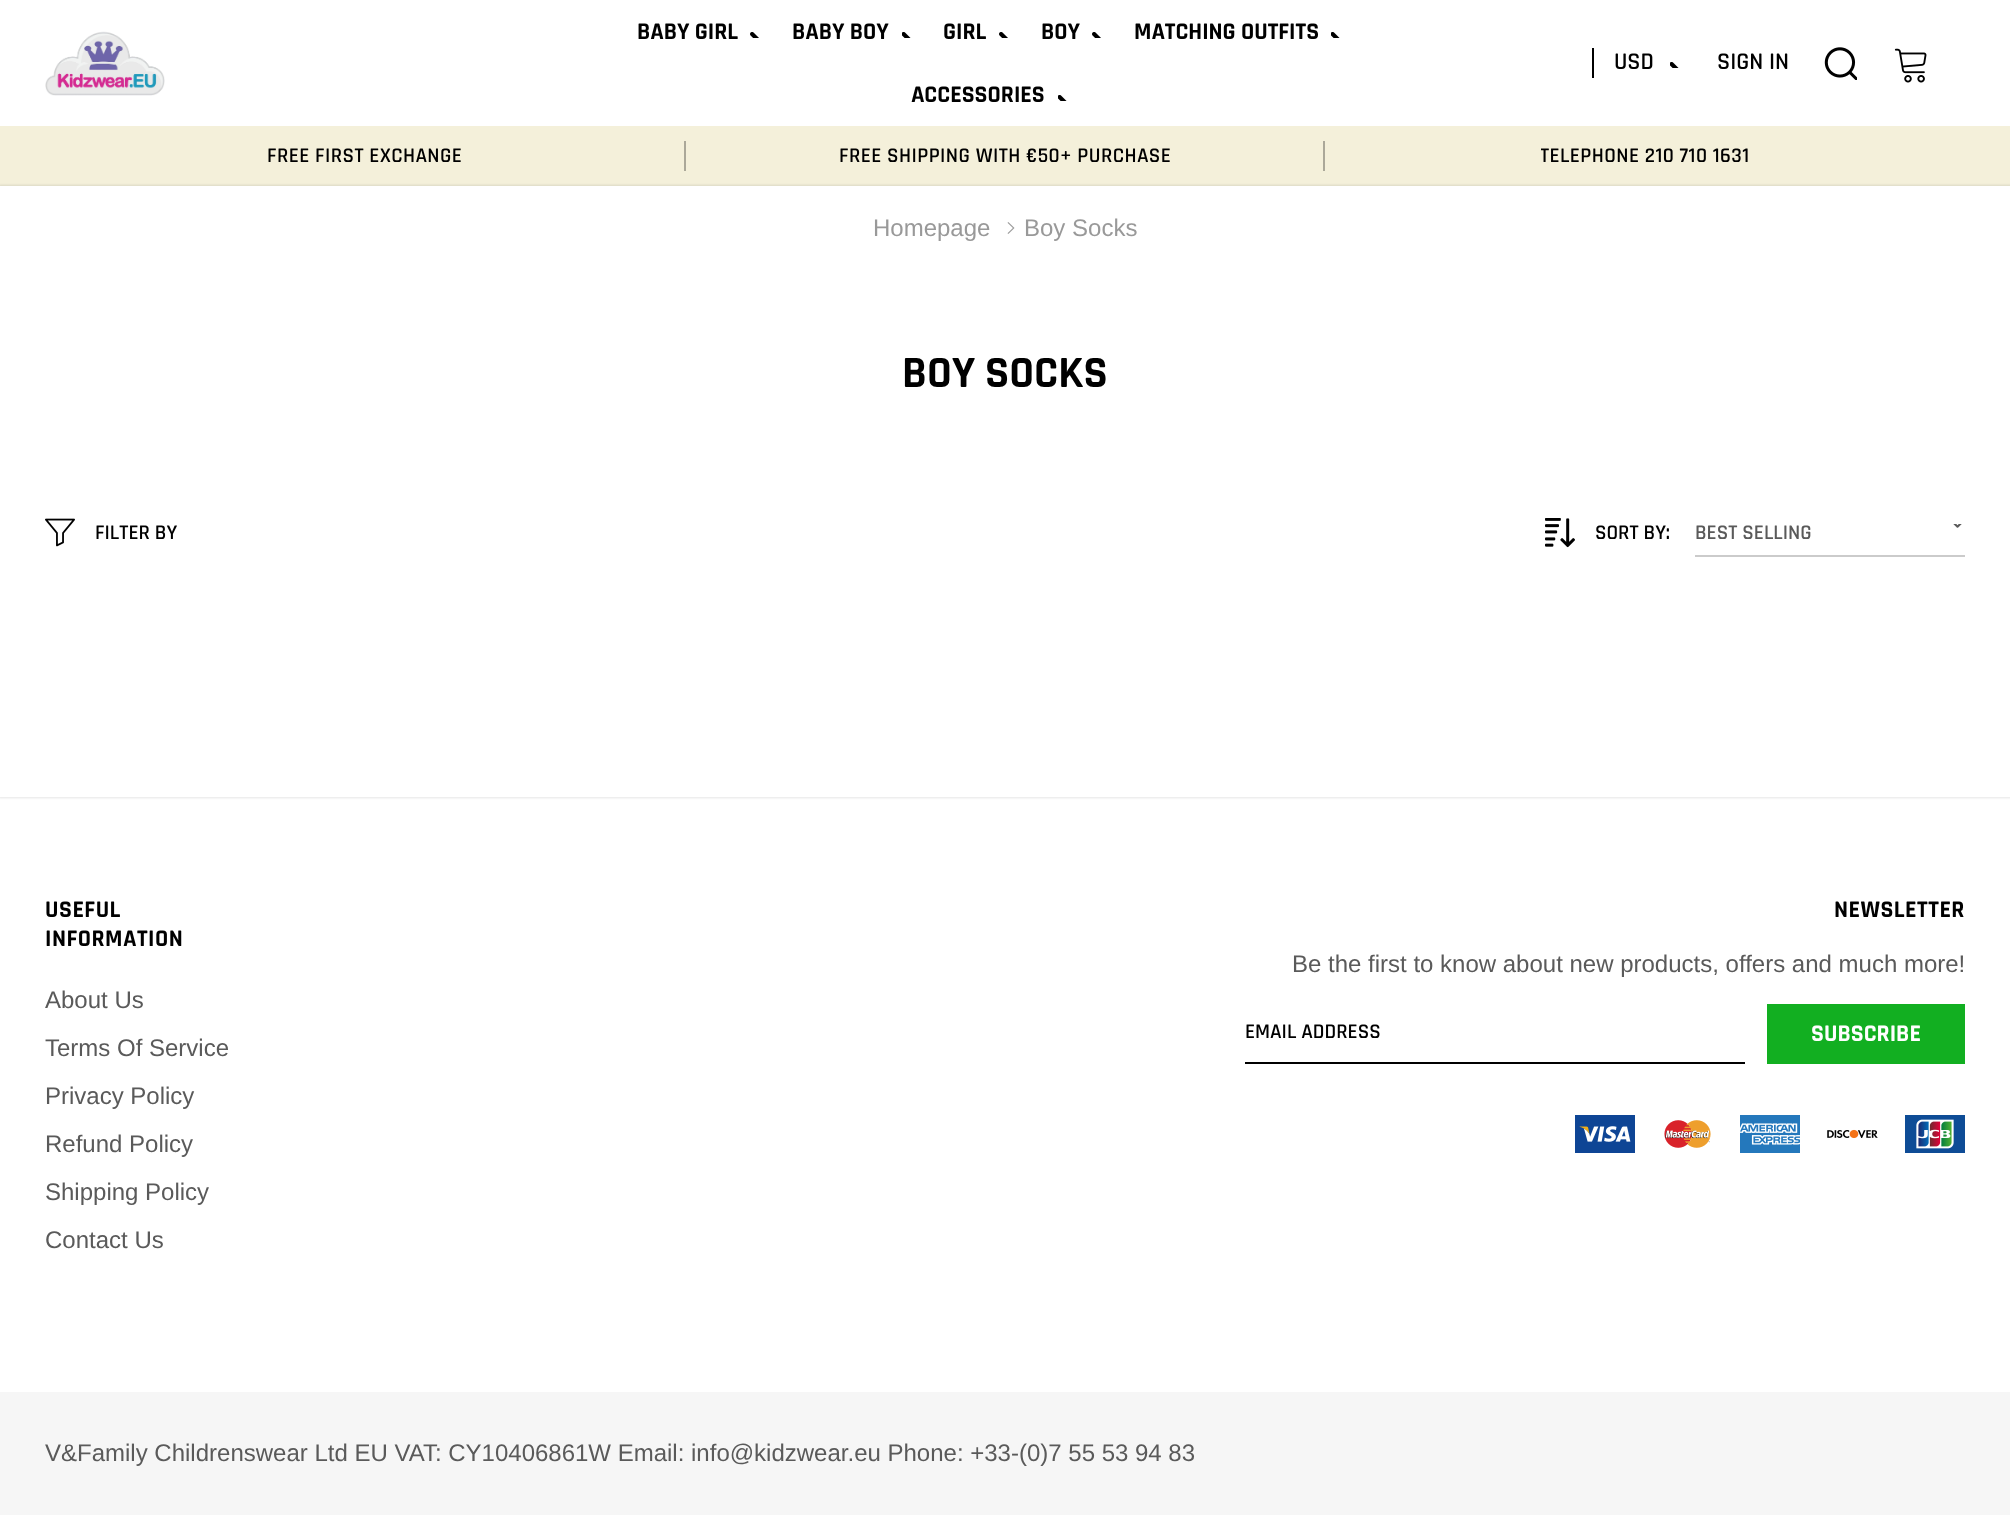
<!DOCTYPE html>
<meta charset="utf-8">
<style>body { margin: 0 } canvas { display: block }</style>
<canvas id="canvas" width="2010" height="1515"></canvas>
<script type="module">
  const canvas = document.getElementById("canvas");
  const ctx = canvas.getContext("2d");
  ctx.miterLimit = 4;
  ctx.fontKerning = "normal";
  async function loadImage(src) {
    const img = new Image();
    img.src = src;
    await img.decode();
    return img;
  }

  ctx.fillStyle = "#ffffff";
  ctx.fillRect(0, 0, 2010, 1515);
  ctx.drawImage(await loadImage("img1.png"), 45, 31, 120, 65);
  ctx.font = "bold 24px Rajdhani";
  ctx.fillStyle = "#000000";
  ctx.fillText("BABY GIRL", 637, 39);
  ctx.drawImage(await loadImage("img2.png"), 750, 32, 9, 6);
  ctx.fillText("BABY BOY", 792, 39);
  ctx.drawImage(await loadImage("img3.png"), 902, 32, 9, 6);
  ctx.fillText("GIRL", 943, 39);
  ctx.drawImage(await loadImage("img2.png"), 999, 32, 9, 6);
  ctx.fillText("BOY", 1041, 39);
  ctx.drawImage(await loadImage("img2.png"), 1092, 32, 9, 6);
  ctx.fillText("MATCHING OUTFITS", 1134, 39);
  ctx.drawImage(await loadImage("img3.png"), 1331, 32, 9, 6);
  ctx.fillText("ACCESSORIES", 911, 102);
  ctx.drawImage(await loadImage("img3.png"), 1058, 95, 9, 6);
  ctx.fillRect(1592, 48, 2, 30);
  ctx.font = "600 24px Rajdhani";
  ctx.fillText("USD", 1614, 69);
  ctx.drawImage(await loadImage("img3.png"), 1670, 62, 9, 6);
  ctx.fillText("SIGN IN", 1717, 69);
  ctx.drawImage(await loadImage("img4.png"), 1824, 47, 33, 33);
  ctx.drawImage(await loadImage("img5.png"), 1894, 48, 33, 35);
  ctx.fillStyle = "#f4f0da";
  ctx.fillRect(0, 126, 2010, 60);
  ctx.letterSpacing = "0.4px";
  ctx.font = "600 21px Rajdhani";
  ctx.fillStyle = "#000000";
  ctx.fillText("FREE FIRST EXCHANGE", 267, 162);
  ctx.fillStyle = "#aba899";
  ctx.fillRect(684, 141, 2, 30);
  ctx.fillStyle = "#000000";
  ctx.fillText("FREE SHIPPING WITH €50+ PURCHASE", 839, 162);
  ctx.fillStyle = "#aba899";
  ctx.fillRect(1323, 141, 2, 30);
  ctx.save();
  ctx.beginPath();
  ctx.rect(1541, 140, 210, 33);
  ctx.clip();
  ctx.fillStyle = "#000000";
  ctx.fillText("TELEPHONE 210 710 1631", 1540, 162);
  ctx.restore();
  ctx.fillStyle = "rgba(0, 0, 0, 0.1)";
  ctx.filter = "blur(1px)";
  ctx.beginPath();
  ctx.rect(-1, 185, 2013, 613);
  ctx.fill();
  ctx.filter = "none";
  ctx.fillStyle = "#ffffff";
  ctx.fillRect(0, 186, 2010, 611);
  ctx.letterSpacing = "0px";
  ctx.font = "24px Arimo";
  ctx.fillStyle = "#999999";
  ctx.fillText("Homepage", 873, 236);
  ctx.drawImage(await loadImage("img6.png"), 1007, 222, 8, 12);
  ctx.fillText("Boy Socks", 1024, 236);
  ctx.font = "bold 45px Rajdhani";
  ctx.fillStyle = "#000000";
  ctx.fillText("BOY SOCKS", 902, 387);
  ctx.drawImage(await loadImage("img7.png"), 45, 518, 30, 29);
  ctx.font = "600 21px Rajdhani";
  ctx.fillText("FILTER BY", 95, 539);
  ctx.drawImage(await loadImage("img8.png"), 1545, 518, 30, 30);
  ctx.fillText("SORT BY:", 1595, 539);
  ctx.fillStyle = "#cbcbcb";
  ctx.fillRect(1695, 555, 270, 2);
  ctx.fillStyle = "#5a5a5a";
  ctx.fillText("BEST SELLING", 1695, 539);
  ctx.drawImage(await loadImage("img9.png"), 1953, 524, 9, 4);
  ctx.letterSpacing = "0.5px";
  ctx.font = "bold 24px Rajdhani";
  ctx.fillStyle = "#000000";
  ctx.fillText("USEFUL", 45, 917);
  ctx.fillText("INFORMATION", 45, 946);
  ctx.letterSpacing = "0px";
  ctx.font = "24px Arimo";
  ctx.fillStyle = "#5a5a5a";
  ctx.fillText("About Us", 45, 1008);
  ctx.fillText("Terms Of Service", 45, 1056);
  ctx.fillText("Privacy Policy", 45, 1104);
  ctx.fillText("Refund Policy", 45, 1152);
  ctx.fillText("Shipping Policy", 45, 1200);
  ctx.fillText("Contact Us", 45, 1248);
  ctx.letterSpacing = "0.5px";
  ctx.font = "bold 24px Rajdhani";
  ctx.fillStyle = "#000000";
  ctx.fillText("NEWSLETTER", 1834, 917);
  ctx.letterSpacing = "0px";
  ctx.font = "24px Arimo";
  ctx.fillStyle = "#5a5a5a";
  ctx.fillText("Be the first to know about new products, offers and much more!", 1292, 972);
  ctx.fillStyle = "#000000";
  ctx.fillRect(1245, 1062, 500, 2);
  ctx.font = "600 21px Rajdhani";
  ctx.fillText("EMAIL ADDRESS", 1245, 1038);
  ctx.fillStyle = "#12af21";
  ctx.fillRect(1767, 1004, 198, 60);
  ctx.font = "bold 24px Rajdhani";
  ctx.fillStyle = "#ffffff";
  ctx.fillText("SUBSCRIBE", 1811, 1041);
  ctx.drawImage(await loadImage("img10.png"), 1575, 1115, 60, 38);
  ctx.drawImage(await loadImage("img11.png"), 1664, 1120, 47, 28);
  ctx.drawImage(await loadImage("img12.png"), 1740, 1115, 60, 38);
  ctx.drawImage(await loadImage("img13.png"), 1827, 1129, 51, 10);
  ctx.drawImage(await loadImage("img14.png"), 1905, 1115, 60, 38);
  ctx.fillStyle = "#f6f6f6";
  ctx.fillRect(0, 1392, 2010, 123);
  ctx.font = "24px Arimo";
  ctx.fillStyle = "#5a5a5a";
  ctx.fillText("V&Family Childrenswear Ltd EU VAT: CY10406861W Email: info@kidzwear.eu Phone: +33-(0)7 55 53 94 83", 45, 1461);
</script>
